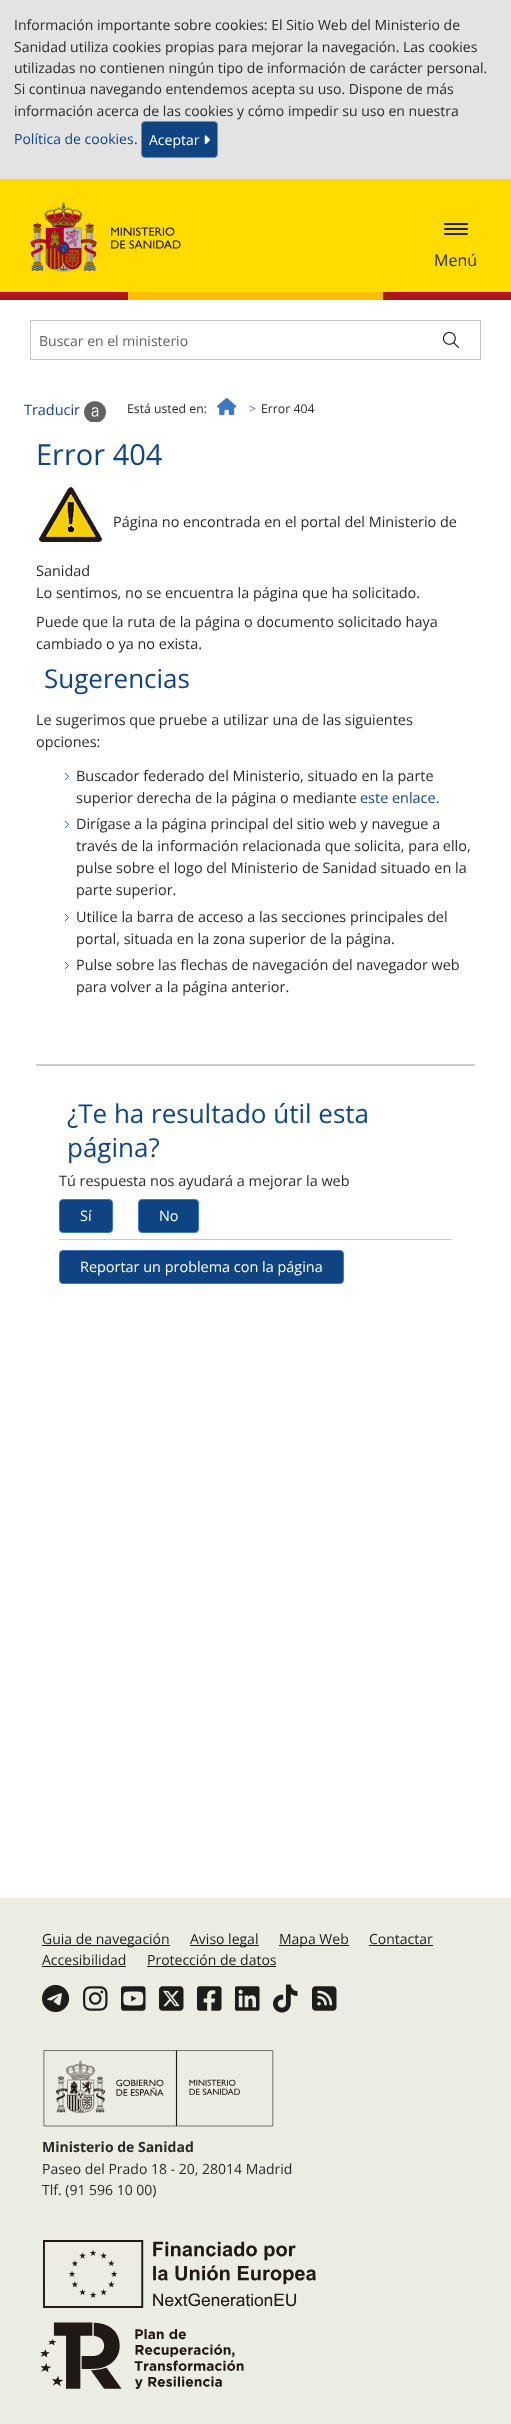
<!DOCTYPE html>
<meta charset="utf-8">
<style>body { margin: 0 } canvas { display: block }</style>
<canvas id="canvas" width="511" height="2424"></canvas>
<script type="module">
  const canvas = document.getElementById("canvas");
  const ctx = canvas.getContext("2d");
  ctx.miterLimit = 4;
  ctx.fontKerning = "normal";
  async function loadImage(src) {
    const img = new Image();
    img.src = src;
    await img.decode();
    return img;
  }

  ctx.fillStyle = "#ffffff";
  ctx.fillRect(0, 0, 511, 2424);
  ctx.fillStyle = "#ffdb00";
  ctx.fillRect(0, 179, 511, 113);
  ctx.fillStyle = "#e3e3e3";
  ctx.fillRect(0, 0, 511, 179);
  ctx.font = "14px Open Sans";
  ctx.fillStyle = "#2a2a2a";
  ctx.fillText("Información importante sobre cookies: El Sitio Web del Ministerio de", 14, 30);
  ctx.fillText("Sanidad utiliza cookies propias para mejorar la navegación. Las cookies", 14, 52);
  ctx.fillText("utilizadas no contienen ningún tipo de información de carácter personal.", 14, 73);
  ctx.fillText("Si continua navegando entendemos acepta su uso. Dispone de más", 14, 94);
  ctx.fillText("información acerca de las cookies y cómo impedir su uso en nuestra", 14, 116);
  ctx.fillStyle = "#0f4483";
  ctx.fillText("Política de cookies", 14, 144);
  ctx.fillStyle = "#2a2a2a";
  ctx.fillText(".", 134, 144);
  ctx.fillStyle = "#0f4483";
  ctx.beginPath();
  ctx.roundRect(141.5, 121.5, 76, 36, 3.5);
  ctx.fill();
  ctx.strokeStyle = "#7690b2";
  ctx.stroke();
  ctx.fillStyle = "#ffffff";
  ctx.fillText("Aceptar", 149, 145);
  ctx.drawImage(await loadImage("img1.png"), 204, 135, 6, 10);
  ctx.drawImage(await loadImage("img2.png"), 30, 202, 151, 70);
  ctx.fillStyle = "#1d1d1b";
  ctx.beginPath();
  ctx.roundRect(444, 223, 24, 2, 1);
  ctx.fill();
  ctx.beginPath();
  ctx.roundRect(444, 228, 24, 2, 1);
  ctx.fill();
  ctx.beginPath();
  ctx.roundRect(444, 233, 24, 2, 1);
  ctx.fill();
  ctx.font = "16px Open Sans";
  ctx.fillStyle = "#2a2a2a";
  ctx.fillText("Menú", 434, 266);
  ctx.fillStyle = "#ad1519";
  ctx.fillRect(0, 292, 128, 8);
  ctx.fillStyle = "#fabd00";
  ctx.fillRect(128, 292, 255, 8);
  ctx.fillStyle = "#ad1519";
  ctx.fillRect(383, 292, 128, 8);
  ctx.strokeStyle = "#c4c4c4";
  ctx.strokeRect(30.5, 320.5, 450, 39);
  ctx.font = "14px Open Sans";
  ctx.fillStyle = "#616161";
  ctx.fillText("Buscar en el ministerio", 39, 346);
  ctx.drawImage(await loadImage("img3.png"), 443, 332, 16, 16);
  ctx.font = "14.45px Open Sans";
  ctx.fillStyle = "#0f4483";
  ctx.fillText("Traducir", 24, 415);
  ctx.drawImage(await loadImage("img4.png"), 84, 401, 22, 21);
  ctx.font = "12.25px Open Sans";
  ctx.fillStyle = "#2a2a2a";
  ctx.fillText("Está usted en:", 127, 413);
  ctx.drawImage(await loadImage("img5.png"), 217, 398, 20, 18);
  ctx.fillStyle = "#3e77c2";
  ctx.fillText(">", 249, 413);
  ctx.fillStyle = "#2a2a2a";
  ctx.fillText("Error 404", 261, 413);
  ctx.font = "29px Open Sans";
  ctx.fillStyle = "#0f4483";
  ctx.fillText("Error 404", 36, 465);
  ctx.drawImage(await loadImage("img6.png"), 39, 487, 63, 55);
  ctx.font = "14.45px Open Sans";
  ctx.fillStyle = "#2a2a2a";
  ctx.fillText("Página no encontrada en el portal del Ministerio de", 113, 527);
  ctx.fillText("Sanidad", 36, 576);
  ctx.fillText("Lo sentimos, no se encuentra la página que ha solicitado.", 36, 598);
  ctx.fillText("Puede que la ruta de la página o documento solicitado haya", 36, 627);
  ctx.fillText("cambiado o ya no exista.", 36, 649);
  ctx.font = "26px Open Sans";
  ctx.fillStyle = "#0f4483";
  ctx.fillText("Sugerencias", 44, 688);
  ctx.font = "14.45px Open Sans";
  ctx.fillStyle = "#2a2a2a";
  ctx.fillText("Le sugerimos que pruebe a utilizar una de las siguientes", 36, 725);
  ctx.fillText("opciones:", 36, 747);
  ctx.drawImage(await loadImage("img7.png"), 65, 773, 4, 7);
  ctx.fillText("Buscador federado del Ministerio, situado en la parte", 76, 781);
  ctx.fillText("superior derecha de la página o mediante", 76, 803);
  ctx.fillStyle = "#0f4483";
  ctx.fillText("este enlace.", 360, 803);
  ctx.drawImage(await loadImage("img7.png"), 65, 821, 4, 7);
  ctx.fillStyle = "#2a2a2a";
  ctx.fillText("Dirígase a la página principal del sitio web y navegue a", 76, 829);
  ctx.fillText("través de la información relacionada que solicita, para ello,", 76, 851);
  ctx.fillText("pulse sobre el logo del Ministerio de Sanidad situado en la", 76, 873);
  ctx.fillText("parte superior.", 76, 895);
  ctx.drawImage(await loadImage("img7.png"), 65, 914, 4, 7);
  ctx.fillText("Utilice la barra de acceso a las secciones principales del", 76, 922);
  ctx.fillText("portal, situada en la zona superior de la página.", 76, 944);
  ctx.drawImage(await loadImage("img7.png"), 65, 962, 4, 7);
  ctx.fillText("Pulse sobre las flechas de navegación del navegador web", 76, 970);
  ctx.fillText("para volver a la página anterior.", 76, 992);
  ctx.fillStyle = "#cccccc";
  ctx.fillRect(36, 1064, 439, 2);
  ctx.font = "26px Open Sans";
  ctx.fillStyle = "#0f4483";
  ctx.fillText("¿Te ha resultado útil esta", 67, 1123);
  ctx.fillText("página?", 67, 1157);
  ctx.font = "14.45px Open Sans";
  ctx.fillStyle = "#2a2a2a";
  ctx.fillText("Tú respuesta nos ayudará a mejorar la web", 59, 1186);
  ctx.fillStyle = "#0f4483";
  ctx.beginPath();
  ctx.roundRect(59.5, 1199.5, 53, 33, 3.5);
  ctx.fill();
  ctx.strokeStyle = "#3e77c2";
  ctx.stroke();
  ctx.fillStyle = "#ffffff";
  ctx.fillText("Sí", 80, 1221);
  ctx.fillStyle = "#0f4483";
  ctx.beginPath();
  ctx.roundRect(138.5, 1199.5, 60, 33, 3.5);
  ctx.fill();
  ctx.stroke();
  ctx.fillStyle = "#ffffff";
  ctx.fillText("No", 159, 1221);
  ctx.fillStyle = "#cccccc";
  ctx.fillRect(59, 1239, 393, 1);
  ctx.fillStyle = "#0f4483";
  ctx.beginPath();
  ctx.roundRect(59.5, 1250.5, 284, 33, 3.5);
  ctx.fill();
  ctx.stroke();
  ctx.fillStyle = "#ffffff";
  ctx.fillText("Reportar un problema con la página", 80, 1272);
  ctx.fillStyle = "#ecece2";
  ctx.fillRect(0, 1898, 511, 526);
  ctx.fillStyle = "#1d1d1b";
  ctx.fillRect(42, 1945, 128, 1);
  ctx.font = "14px Open Sans";
  ctx.fillText("Guia de navegación", 42, 1944);
  ctx.fillRect(190, 1945, 69, 1);
  ctx.fillText("Aviso legal", 190, 1944);
  ctx.fillRect(279, 1945, 70, 1);
  ctx.fillText("Mapa Web", 279, 1944);
  ctx.fillText("Contactar", 369, 1944);
  ctx.fillRect(369, 1945, 64, 1);
  ctx.fillText("Accesibilidad", 42, 1965);
  ctx.fillRect(42, 1966, 84, 1);
  ctx.fillText("Protección de datos", 147, 1965);
  ctx.fillRect(147, 1966, 129, 1);
  ctx.drawImage(await loadImage("img8.png"), 42, 1984, 28, 29);
  ctx.drawImage(await loadImage("img9.png"), 83, 1986, 25, 25);
  ctx.drawImage(await loadImage("img10.png"), 121, 1986, 25, 25);
  ctx.drawImage(await loadImage("img11.png"), 159, 1986, 25, 25);
  ctx.drawImage(await loadImage("img12.png"), 197, 1986, 25, 25);
  ctx.drawImage(await loadImage("img13.png"), 235, 1986, 25, 25);
  ctx.drawImage(await loadImage("img14.png"), 273, 1984, 25, 29);
  ctx.drawImage(await loadImage("img15.png"), 312, 1986, 25, 25);
  ctx.drawImage(await loadImage("img16.png"), 43, 2050, 231, 77);
  ctx.font = "bold 14px Open Sans";
  ctx.fillStyle = "#2a2a2a";
  ctx.fillText("Ministerio de Sanidad", 42, 2152);
  ctx.font = "14px Open Sans";
  ctx.fillText("Paseo del Prado 18 - 20, 28014 Madrid", 42, 2174);
  ctx.fillText("Tlf. (91 596 10 00)", 42, 2195);
  ctx.drawImage(await loadImage("img17.png"), 43, 2240, 273, 68);
  ctx.drawImage(await loadImage("img18.png"), 40, 2322, 204, 67);
</script>
